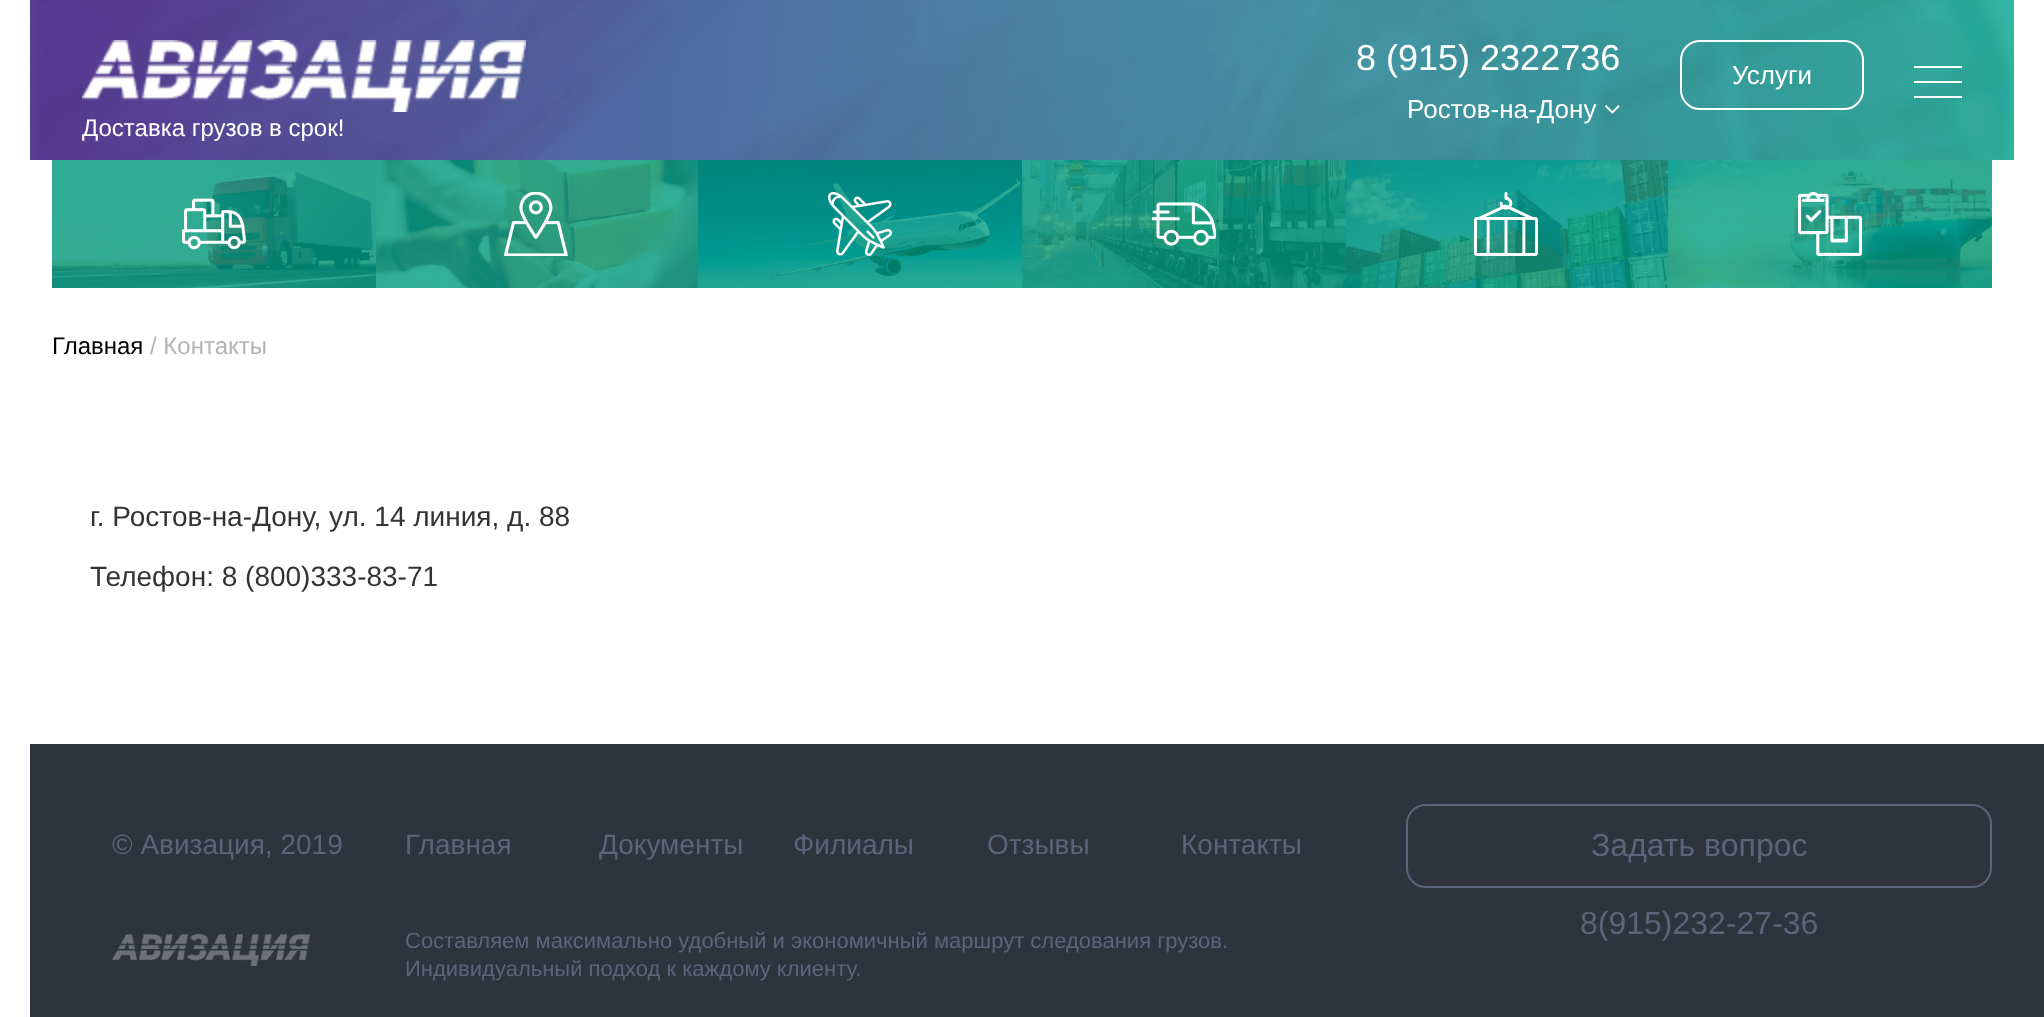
<!DOCTYPE html>
<meta charset="utf-8">
<style>body { margin: 0 } canvas { display: block }</style>
<canvas id="canvas" width="2044" height="1017"></canvas>
<script type="module">
  const canvas = document.getElementById("canvas");
  const ctx = canvas.getContext("2d");
  ctx.miterLimit = 4;
  ctx.fontKerning = "normal";
  async function loadImage(src) {
    const img = new Image();
    img.src = src;
    await img.decode();
    return img;
  }

  ctx.fillStyle = "#ffffff";
  ctx.fillRect(0, 0, 2044, 1017);
  ctx.drawImage(await loadImage("img1.png"), 30, 0, 1984, 160);
  ctx.font = "36px Liberation Sans";
  ctx.fillText("8 (915) 2322736", 1356, 70);
  ctx.font = "26px Liberation Sans";
  ctx.fillText("Ростов-на-Дону", 1407, 118);
  ctx.drawImage(await loadImage("img2.png"), 1605, 105, 15, 9);
  ctx.beginPath();
  ctx.roundRect(1681, 41, 182, 68, 19);
  ctx.strokeStyle = "#ffffff";
  ctx.lineWidth = 2;
  ctx.stroke();
  ctx.fillText("Услуги", 1732, 84);
  ctx.fillRect(1914, 66, 48, 2);
  ctx.fillRect(1914, 81, 48, 2);
  ctx.fillRect(1914, 96, 48, 2);
  ctx.drawImage(await loadImage("img3.png"), 82, 40, 444, 72);
  ctx.font = "24px Liberation Sans";
  ctx.fillText("Доставка грузов в срок!", 82, 136);
  ctx.drawImage(await loadImage("img4.png"), 52, 160, 324, 128);
  ctx.drawImage(await loadImage("img5.png"), 182, 198, 64, 52);
  ctx.drawImage(await loadImage("img6.png"), 376, 160, 322, 128);
  ctx.drawImage(await loadImage("img7.png"), 504, 192, 64, 64);
  ctx.drawImage(await loadImage("img8.png"), 698, 160, 324, 128);
  ctx.drawImage(await loadImage("img9.png"), 828, 192, 64, 64);
  ctx.drawImage(await loadImage("img10.png"), 1022, 160, 324, 128);
  ctx.drawImage(await loadImage("img11.png"), 1152, 202, 64, 44);
  ctx.drawImage(await loadImage("img12.png"), 1346, 160, 322, 128);
  ctx.drawImage(await loadImage("img13.png"), 1474, 192, 64, 64);
  ctx.drawImage(await loadImage("img14.png"), 1668, 160, 324, 128);
  ctx.drawImage(await loadImage("img15.png"), 1798, 192, 64, 64);
  ctx.fillStyle = "#000000";
  ctx.fillText("Главная", 52, 354);
  ctx.fillStyle = "#b3b3b3";
  ctx.fillText("/ Контакты", 150, 354);
  ctx.font = "28px Liberation Sans";
  ctx.fillStyle = "#333333";
  ctx.fillText("г. Ростов-на-Дону, ул. 14 линия, д. 88", 90, 526);
  ctx.fillText("Телефон: 8 (800)333-83-71", 90, 586);
  ctx.fillStyle = "#2e333d";
  ctx.fillRect(30, 744, 2014, 273);
  ctx.fillStyle = "#5b657a";
  ctx.fillText("© Авизация, 2019", 112, 854);
  ctx.fillText("Главная", 405, 854);
  ctx.fillText("Документы", 599, 854);
  ctx.fillText("Филиалы", 793, 854);
  ctx.fillText("Отзывы", 987, 854);
  ctx.fillText("Контакты", 1181, 854);
  ctx.drawImage(await loadImage("img16.png"), 112, 934, 198, 32);
  ctx.font = "22px Liberation Sans";
  ctx.fillText("Составляем максимально удобный и экономичный маршрут следования грузов.", 405, 948);
  ctx.fillText("Индивидуальный подход к каждому клиенту.", 405, 976);
  ctx.beginPath();
  ctx.roundRect(1407, 805, 584, 82, 19);
  ctx.strokeStyle = "#5b657a";
  ctx.stroke();
  ctx.font = "32px Liberation Sans";
  ctx.fillText("Задать вопрос", 1591, 856);
  ctx.fillText("8(915)232-27-36", 1580, 934);
</script>
